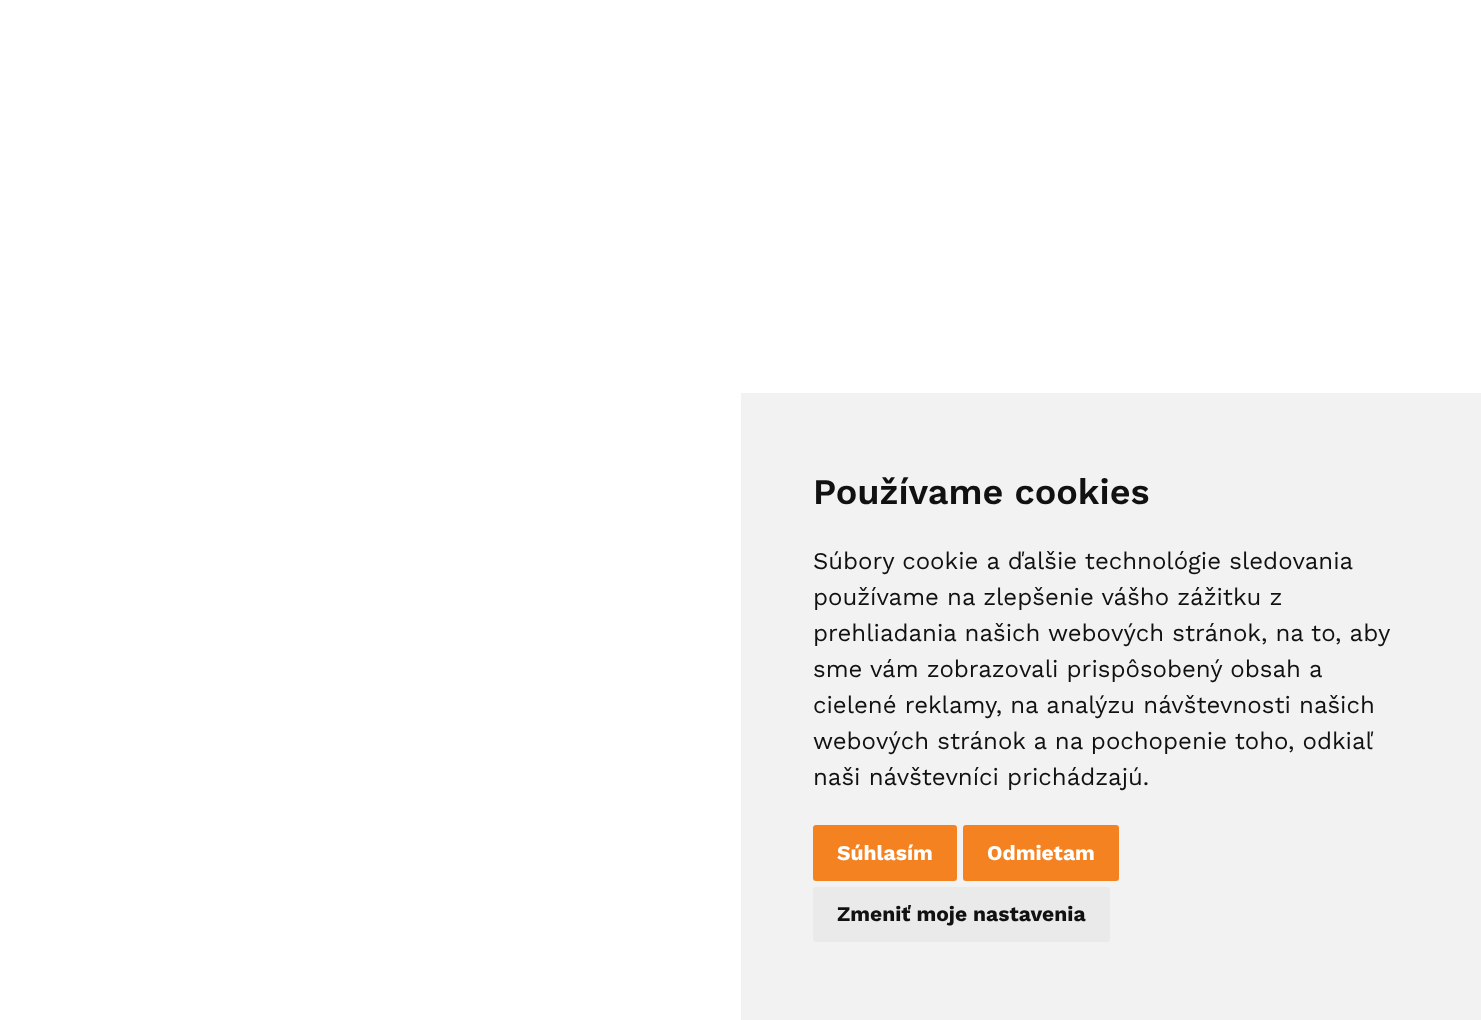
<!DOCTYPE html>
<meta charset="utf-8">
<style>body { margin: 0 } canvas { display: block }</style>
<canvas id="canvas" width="1481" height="1020"></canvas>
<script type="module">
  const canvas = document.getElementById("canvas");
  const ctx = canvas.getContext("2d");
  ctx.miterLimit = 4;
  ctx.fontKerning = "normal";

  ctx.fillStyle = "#ffffff";
  ctx.fillRect(0, 0, 1481, 1020);
  ctx.fillStyle = "#f2f2f2";
  ctx.fillRect(741, 393, 740, 627);
  ctx.font = "600 36px Work Sans";
  ctx.fillStyle = "#111111";
  ctx.fillText("Používame cookies", 813, 504);
  ctx.font = "24px Work Sans";
  ctx.fillText("Súbory cookie a ďalšie technológie sledovania", 813, 569);
  ctx.fillText("používame na zlepšenie vášho zážitku z", 813, 605);
  ctx.fillText("prehliadania našich webových stránok, na to, aby", 813, 641);
  ctx.fillText("sme vám zobrazovali prispôsobený obsah a", 813, 677);
  ctx.fillText("cielené reklamy, na analýzu návštevnosti našich", 813, 713);
  ctx.fillText("webových stránok a na pochopenie toho, odkiaľ", 813, 749);
  ctx.fillText("naši návštevníci prichádzajú.", 813, 785);
  ctx.fillStyle = "#f58221";
  ctx.beginPath();
  ctx.roundRect(813, 825, 144, 56, 3);
  ctx.fill();
  ctx.font = "bold 21px Work Sans";
  ctx.fillStyle = "#ffffff";
  ctx.fillText("Súhlasím", 837, 860);
  ctx.fillStyle = "#f58221";
  ctx.beginPath();
  ctx.roundRect(963, 825, 156, 56, 3);
  ctx.fill();
  ctx.fillStyle = "#ffffff";
  ctx.fillText("Odmietam", 987, 860);
  ctx.fillStyle = "#eaeaea";
  ctx.beginPath();
  ctx.roundRect(813, 887, 297, 55, 3);
  ctx.fill();
  ctx.fillStyle = "#111111";
  ctx.fillText("Zmeniť moje nastavenia", 837, 921);
</script>
